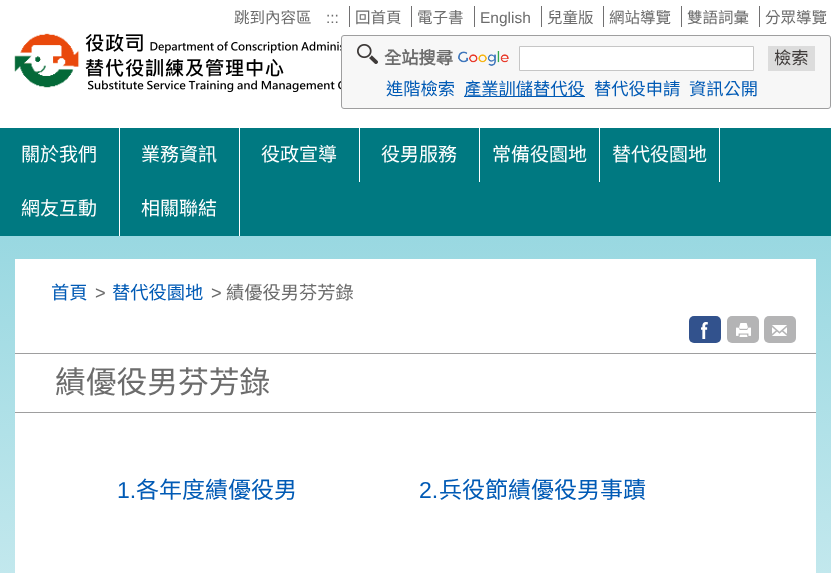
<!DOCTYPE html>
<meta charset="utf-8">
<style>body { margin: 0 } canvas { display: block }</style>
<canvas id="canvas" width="831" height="573"></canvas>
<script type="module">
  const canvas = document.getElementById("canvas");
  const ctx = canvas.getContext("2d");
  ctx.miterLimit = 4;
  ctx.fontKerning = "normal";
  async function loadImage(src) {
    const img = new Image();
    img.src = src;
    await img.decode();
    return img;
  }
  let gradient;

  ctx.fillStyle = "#ffffff";
  ctx.fillRect(0, 0, 831, 573);
  ctx.font = "15.5px Noto Sans CJK TC";
  ctx.fillStyle = "#6c6c6c";
  ctx.fillText("跳到內容區", 234, 23);
  ctx.font = "15.5px Liberation Sans";
  ctx.fillText(":::", 326, 23);
  ctx.fillStyle = "#717071";
  ctx.fillRect(349, 6, 1, 21);
  ctx.font = "15.5px Noto Sans CJK TC";
  ctx.fillStyle = "#6c6c6c";
  ctx.fillText("回首頁", 355, 23);
  ctx.fillStyle = "#717071";
  ctx.fillRect(411, 6, 1, 21);
  ctx.fillStyle = "#6c6c6c";
  ctx.fillText("電子書", 417, 23);
  ctx.fillStyle = "#717071";
  ctx.fillRect(474, 6, 1, 21);
  ctx.font = "15.5px Liberation Sans";
  ctx.fillStyle = "#6c6c6c";
  ctx.fillText("English", 480, 23);
  ctx.fillStyle = "#717071";
  ctx.fillRect(541, 6, 1, 21);
  ctx.font = "15.5px Noto Sans CJK TC";
  ctx.fillStyle = "#6c6c6c";
  ctx.fillText("兒童版", 547, 23);
  ctx.fillStyle = "#717071";
  ctx.fillRect(603, 6, 1, 21);
  ctx.fillStyle = "#6c6c6c";
  ctx.fillText("網站導覽", 609, 23);
  ctx.fillStyle = "#717071";
  ctx.fillRect(681, 6, 1, 21);
  ctx.fillStyle = "#6c6c6c";
  ctx.fillText("雙語詞彙", 687, 23);
  ctx.fillStyle = "#717071";
  ctx.fillRect(759, 6, 1, 21);
  ctx.fillStyle = "#6c6c6c";
  ctx.fillText("分眾導覽", 765, 23);
  ctx.drawImage(await loadImage("img1.png"), 14, 33, 327, 60);
  ctx.fillStyle = "#f7f7f7";
  ctx.beginPath();
  ctx.roundRect(341, 35, 490, 74, 3);
  ctx.fill();
  ctx.drawImage(await loadImage("img2.png"), 357, 44, 21, 20);
  ctx.beginPath();
  ctx.roundRect(341.5, 35.5, 489, 73, 2.5);
  ctx.strokeStyle = "#9e9e9f";
  ctx.stroke();
  ctx.font = "bold 17.25px Noto Sans CJK TC";
  ctx.fillStyle = "#6c6c6c";
  ctx.fillText("全站搜尋", 384, 64);
  ctx.drawImage(await loadImage("img3.png"), 458, 51, 51, 15);
  ctx.fillStyle = "#ffffff";
  ctx.beginPath();
  ctx.rect(519.5, 46.5, 234, 24);
  ctx.fill();
  ctx.strokeStyle = "#c6c6c6";
  ctx.stroke();
  ctx.fillStyle = "#dcdcdc";
  ctx.fillRect(768, 46, 47, 25);
  ctx.font = "17.25px Noto Sans CJK TC";
  ctx.fillStyle = "#3e3a39";
  ctx.fillText("檢索", 774, 64);
  ctx.fillStyle = "#005ab5";
  ctx.fillText("進階檢索", 386, 95);
  ctx.fillRect(464, 96, 121, 1);
  ctx.fillText("產業訓儲替代役", 464, 95);
  ctx.fillText("替代役申請", 594, 95);
  ctx.fillText("資訊公開", 689, 95);
  ctx.fillStyle = "#007981";
  ctx.fillRect(0, 128, 831, 108);
  ctx.fillStyle = "#ffffff";
  ctx.fillRect(119, 128, 1, 108);
  ctx.font = "19px Noto Sans CJK TC";
  ctx.fillText("關於我們", 21, 161);
  ctx.fillRect(239, 128, 1, 108);
  ctx.fillText("業務資訊", 141, 161);
  ctx.fillRect(359, 128, 1, 54);
  ctx.fillText("役政宣導", 261, 161);
  ctx.fillRect(479, 128, 1, 54);
  ctx.fillText("役男服務", 381, 161);
  ctx.fillRect(599, 128, 1, 54);
  ctx.fillText("常備役園地", 492, 161);
  ctx.fillRect(719, 128, 1, 54);
  ctx.fillText("替代役園地", 612, 161);
  ctx.fillText("網友互動", 21, 215);
  ctx.fillText("相關聯結", 141, 215);
  gradient = ctx.createLinearGradient(415, 236, 416, 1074);
  gradient.addColorStop(0, "#99d8e1");
  gradient.addColorStop(1, "#ffffff");
  ctx.fillStyle = gradient;
  ctx.fillRect(0, 236, 831, 337);
  ctx.fillStyle = "#ffffff";
  ctx.fillRect(15, 259, 801, 314);
  ctx.font = "18.25px Noto Sans CJK TC";
  ctx.fillStyle = "#005ab5";
  ctx.fillText("首頁", 51, 299);
  ctx.font = "18.25px Liberation Sans";
  ctx.fillStyle = "#6c6c6c";
  ctx.fillText(">", 95, 299);
  ctx.font = "18.25px Noto Sans CJK TC";
  ctx.fillStyle = "#005ab5";
  ctx.fillText("替代役園地", 112, 299);
  ctx.font = "18.25px Liberation Sans";
  ctx.fillStyle = "#6c6c6c";
  ctx.fillText(">", 211, 299);
  ctx.font = "18.25px Noto Sans CJK TC";
  ctx.fillText("績優役男芬芳錄", 226, 299);
  ctx.fillStyle = "#32528d";
  ctx.beginPath();
  ctx.roundRect(689, 316, 32, 27, 5);
  ctx.fill();
  ctx.drawImage(await loadImage("img4.png"), 701, 322, 7, 17);
  ctx.fillStyle = "#b4b4b5";
  ctx.beginPath();
  ctx.roundRect(727, 316, 32, 27, 5);
  ctx.fill();
  ctx.drawImage(await loadImage("img5.png"), 736, 323, 15, 14);
  ctx.beginPath();
  ctx.roundRect(764, 316, 32, 27, 5);
  ctx.fill();
  ctx.drawImage(await loadImage("img6.png"), 772, 325, 15, 11);
  ctx.fillStyle = "#9e9e9f";
  ctx.fillRect(15, 353, 801, 1);
  ctx.fillRect(15, 412, 801, 1);
  ctx.font = "30.75px Noto Sans CJK TC";
  ctx.fillStyle = "#6c6c6c";
  ctx.fillText("績優役男芬芳錄", 55, 393);
  ctx.font = "23px Liberation Sans";
  ctx.fillStyle = "#005ab5";
  ctx.fillText("1.", 117, 498);
  ctx.font = "23px Noto Sans CJK TC";
  ctx.fillText("各年度績優役男", 136, 498);
  ctx.font = "23px Liberation Sans";
  ctx.fillText("2.", 419, 498);
  ctx.font = "23px Noto Sans CJK TC";
  ctx.fillText("兵役節績優役男事蹟", 439, 498);
</script>
